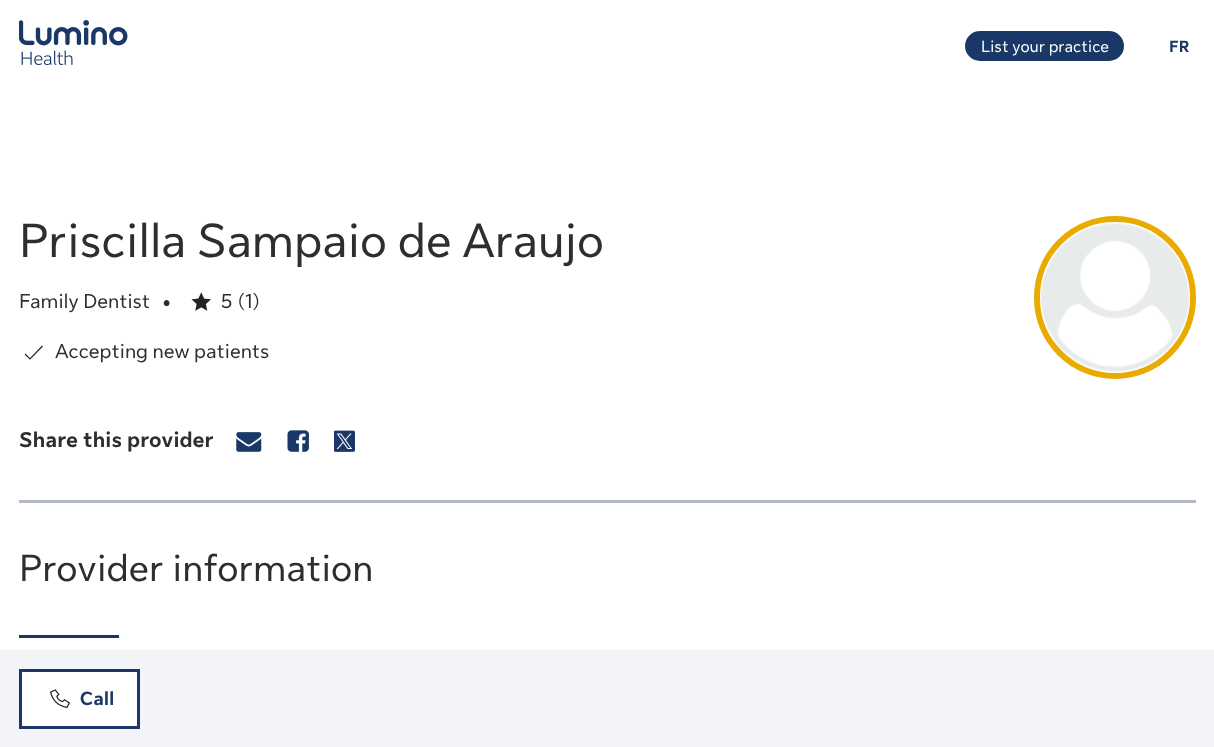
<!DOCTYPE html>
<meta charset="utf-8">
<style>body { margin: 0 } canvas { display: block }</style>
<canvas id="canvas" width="1214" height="747"></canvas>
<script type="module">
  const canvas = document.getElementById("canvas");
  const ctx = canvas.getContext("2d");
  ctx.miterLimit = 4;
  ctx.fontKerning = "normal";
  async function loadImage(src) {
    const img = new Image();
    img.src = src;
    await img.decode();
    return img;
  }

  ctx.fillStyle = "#ffffff";
  ctx.fillRect(0, 0, 1214, 747);
  ctx.drawImage(await loadImage("img1.png"), 19, 20, 109, 45);
  ctx.fillStyle = "#193767";
  ctx.beginPath();
  ctx.roundRect(965, 31, 159, 30, 15);
  ctx.fill();
  ctx.font = "16.25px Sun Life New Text";
  ctx.fillStyle = "#ffffff";
  ctx.fillText("List your practice", 981, 52);
  ctx.font = "bold 16.25px Sun Life New Text";
  ctx.fillStyle = "#193767";
  ctx.fillText("FR", 1169, 52);
  ctx.fillStyle = "#b2bac7";
  ctx.fillRect(19, 500, 1177, 3);
  ctx.font = "47.5px Sun Life New Text";
  ctx.fillStyle = "#312d2d";
  ctx.fillText("Priscilla Sampaio de Araujo", 19, 257);
  ctx.beginPath();
  ctx.roundRect(1037, 219, 156, 157, 78);
  ctx.strokeStyle = "#eaab00";
  ctx.lineWidth = 6;
  ctx.stroke();
  ctx.drawImage(await loadImage("img2.png"), 1041, 223, 148, 149);
  ctx.font = "20px Sun Life New Text";
  ctx.fillText("Family Dentist", 19, 308);
  ctx.font = "bold 28px Sun Life New Text";
  ctx.fillText("•", 162, 312);
  ctx.drawImage(await loadImage("img3.png"), 191, 292, 20, 19);
  ctx.font = "20px Sun Life New Text";
  ctx.fillText("5", 221, 308);
  ctx.fillText("(1)", 238, 308);
  ctx.beginPath();
  ctx.moveTo(25, 354);
  ctx.lineTo(30, 359);
  ctx.lineTo(42.5, 346);
  ctx.strokeStyle = "#202223";
  ctx.lineWidth = 1.2;
  ctx.stroke();
  ctx.fillText("Accepting new patients", 55, 358);
  ctx.font = "bold 21.25px Sun Life New Text";
  ctx.fillText("Share this provider", 19, 447);
  ctx.drawImage(await loadImage("img4.png"), 236, 432, 26, 20);
  ctx.drawImage(await loadImage("img5.png"), 287, 430, 22, 22);
  ctx.drawImage(await loadImage("img6.png"), 334, 430, 21, 22);
  ctx.font = "37.5px Sun Life New Text";
  ctx.fillText("Provider information", 19, 581);
  ctx.fillStyle = "#193767";
  ctx.fillRect(19, 635, 100, 3);
  ctx.fillStyle = "#f3f4f7";
  ctx.fillRect(0, 650, 1214, 97);
  ctx.fillStyle = "#ffffff";
  ctx.beginPath();
  ctx.rect(20.5, 670.5, 118, 57);
  ctx.fill();
  ctx.strokeStyle = "#193767";
  ctx.lineWidth = 3;
  ctx.stroke();
  ctx.drawImage(await loadImage("img7.png"), 50, 689, 21, 20);
  ctx.font = "bold 19px Sun Life New Text";
  ctx.fillStyle = "#193767";
  ctx.fillText("Call", 80, 705);
</script>
